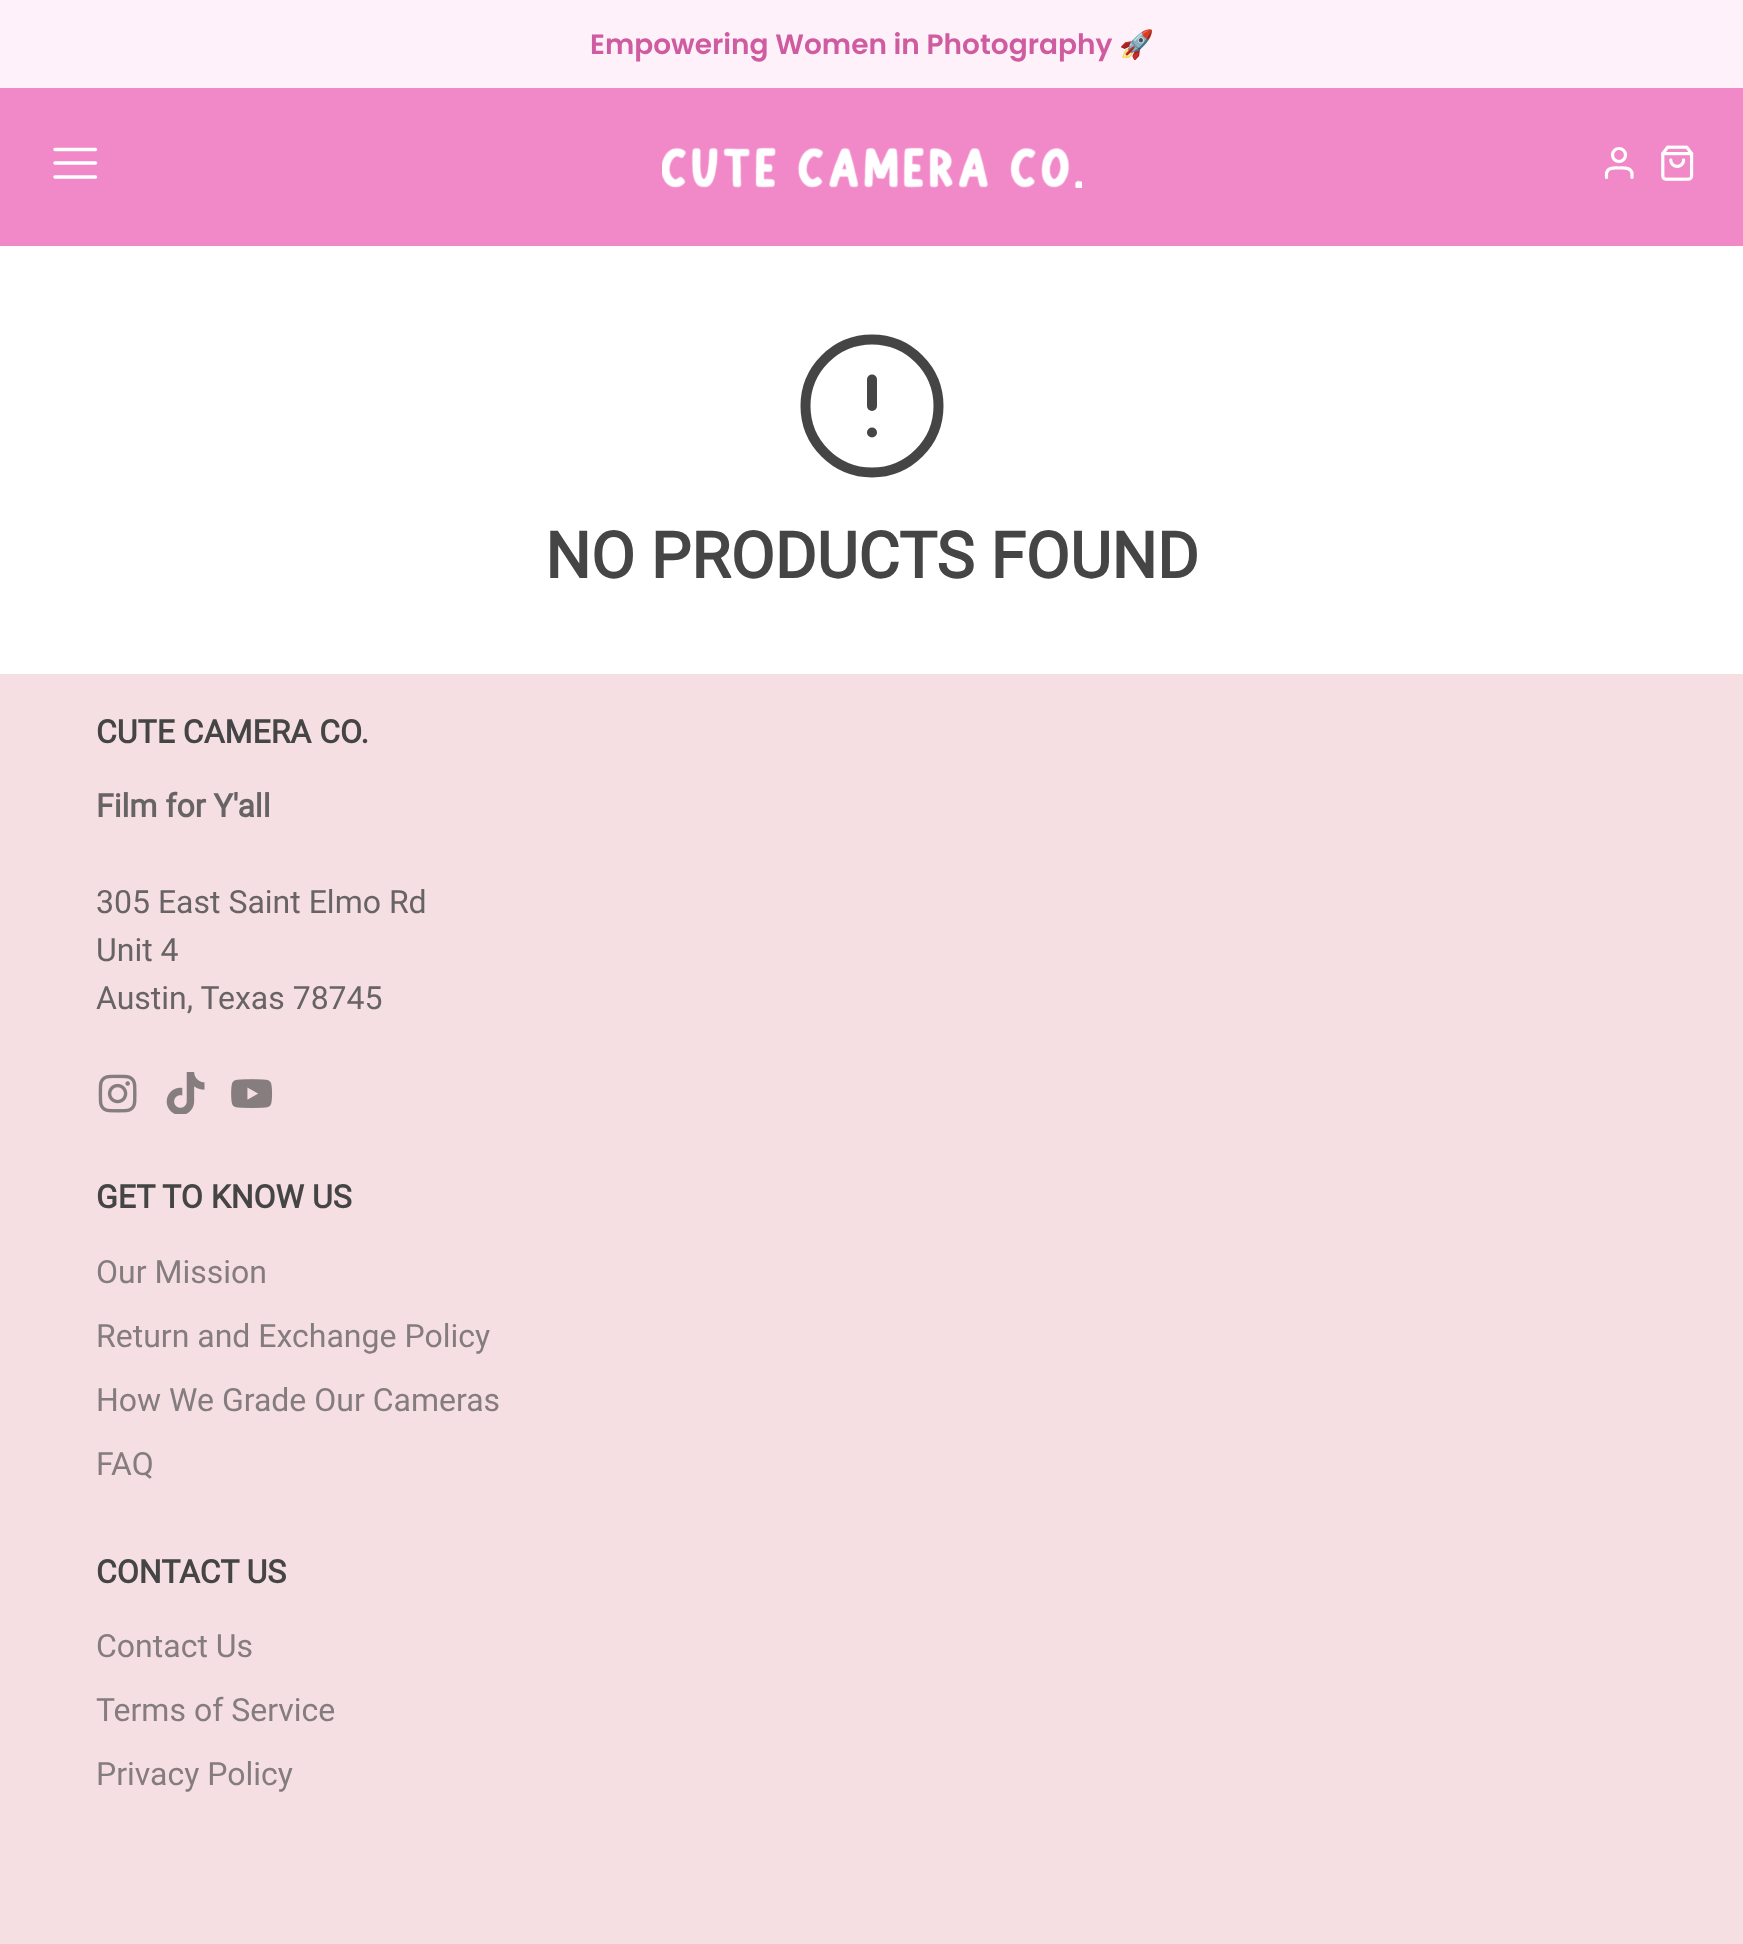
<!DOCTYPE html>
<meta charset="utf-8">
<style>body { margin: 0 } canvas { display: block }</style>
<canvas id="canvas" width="1743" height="1944"></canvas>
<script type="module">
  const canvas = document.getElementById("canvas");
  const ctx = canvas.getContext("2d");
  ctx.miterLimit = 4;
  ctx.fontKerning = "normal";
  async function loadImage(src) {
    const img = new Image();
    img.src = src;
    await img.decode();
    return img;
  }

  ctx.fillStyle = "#ffffff";
  ctx.fillRect(0, 0, 1743, 1944);
  ctx.fillStyle = "#fef1f9";
  ctx.fillRect(0, 0, 1743, 88);
  ctx.font = "600 28px Poppins";
  ctx.fillStyle = "#cf5ba0";
  ctx.fillText("Empowering Women in Photography", 590, 54);
  ctx.font = "bold 28px Noto Color Emoji";
  ctx.fillText("🚀", 1119, 54);
  ctx.fillStyle = "#f189c8";
  ctx.fillRect(0, 88, 1743, 158);
  ctx.beginPath();
  ctx.moveTo(55, 163);
  ctx.lineTo(95.5, 163);
  ctx.moveTo(55, 149.5);
  ctx.lineTo(95.5, 149.5);
  ctx.moveTo(55, 177);
  ctx.lineTo(95.5, 177);
  ctx.strokeStyle = "#ffffff";
  ctx.lineWidth = 3.4;
  ctx.lineCap = "round";
  ctx.lineJoin = "round";
  ctx.stroke();
  ctx.drawImage(await loadImage("img1.png"), 662, 147, 420, 41);
  ctx.beginPath();
  ctx.arc(1619, 155, 6.5, 0, Math.PI * 2);
  ctx.lineWidth = 3.2;
  ctx.stroke();
  ctx.beginPath();
  ctx.moveTo(1632, 177.5);
  ctx.lineTo(1632, 173);
  ctx.bezierCurveTo(1630.5, 167, 1624, 168, 1619, 168);
  ctx.bezierCurveTo(1614.5, 168, 1608, 167, 1606.5, 173);
  ctx.lineTo(1606.5, 177.5);
  ctx.stroke();
  ctx.drawImage(await loadImage("img2.png"), 1661, 145, 33, 36);
  ctx.beginPath();
  ctx.arc(872, 406, 66.5, 0, Math.PI * 2);
  ctx.strokeStyle = "#454545";
  ctx.lineWidth = 10;
  ctx.stroke();
  ctx.beginPath();
  ctx.moveTo(872, 379.5);
  ctx.lineTo(872, 406);
  ctx.stroke();
  ctx.beginPath();
  ctx.moveTo(872, 432.5);
  ctx.lineTo(872, 432.5);
  ctx.stroke();
  ctx.font = "bold 64px Roboto";
  ctx.fillStyle = "#454545";
  ctx.fillText("NO PRODUCTS FOUND", 545, 578);
  ctx.fillStyle = "#f5dfe3";
  ctx.fillRect(0, 674, 1743, 1270);
  ctx.font = "bold 32px Roboto";
  ctx.fillStyle = "#454545";
  ctx.fillText("CUTE CAMERA CO.", 96, 743);
  ctx.fillStyle = "#686465";
  ctx.fillText("Film for Y'all", 96, 817);
  ctx.font = "32px Roboto";
  ctx.fillText("305 East Saint Elmo Rd", 96, 913);
  ctx.fillText("Unit 4", 96, 961);
  ctx.fillText("Austin, Texas 78745", 96, 1009);
  ctx.drawImage(await loadImage("img3.png"), 98, 1074, 39, 39);
  ctx.drawImage(await loadImage("img4.png"), 166, 1072, 39, 42);
  ctx.drawImage(await loadImage("img5.png"), 231, 1079, 42, 29);
  ctx.font = "bold 32px Roboto";
  ctx.fillStyle = "#454545";
  ctx.fillText("GET TO KNOW US", 96, 1208);
  ctx.font = "32px Roboto";
  ctx.fillStyle = "#847c7e";
  ctx.fillText("Our Mission", 96, 1283);
  ctx.fillText("Return and Exchange Policy", 96, 1347);
  ctx.fillText("How We Grade Our Cameras", 96, 1411);
  ctx.fillText("FAQ", 96, 1475);
  ctx.font = "bold 32px Roboto";
  ctx.fillStyle = "#454545";
  ctx.fillText("CONTACT US", 96, 1583);
  ctx.font = "32px Roboto";
  ctx.fillStyle = "#847c7e";
  ctx.fillText("Contact Us", 96, 1657);
  ctx.fillText("Terms of Service", 96, 1721);
  ctx.fillText("Privacy Policy", 96, 1785);
</script>
